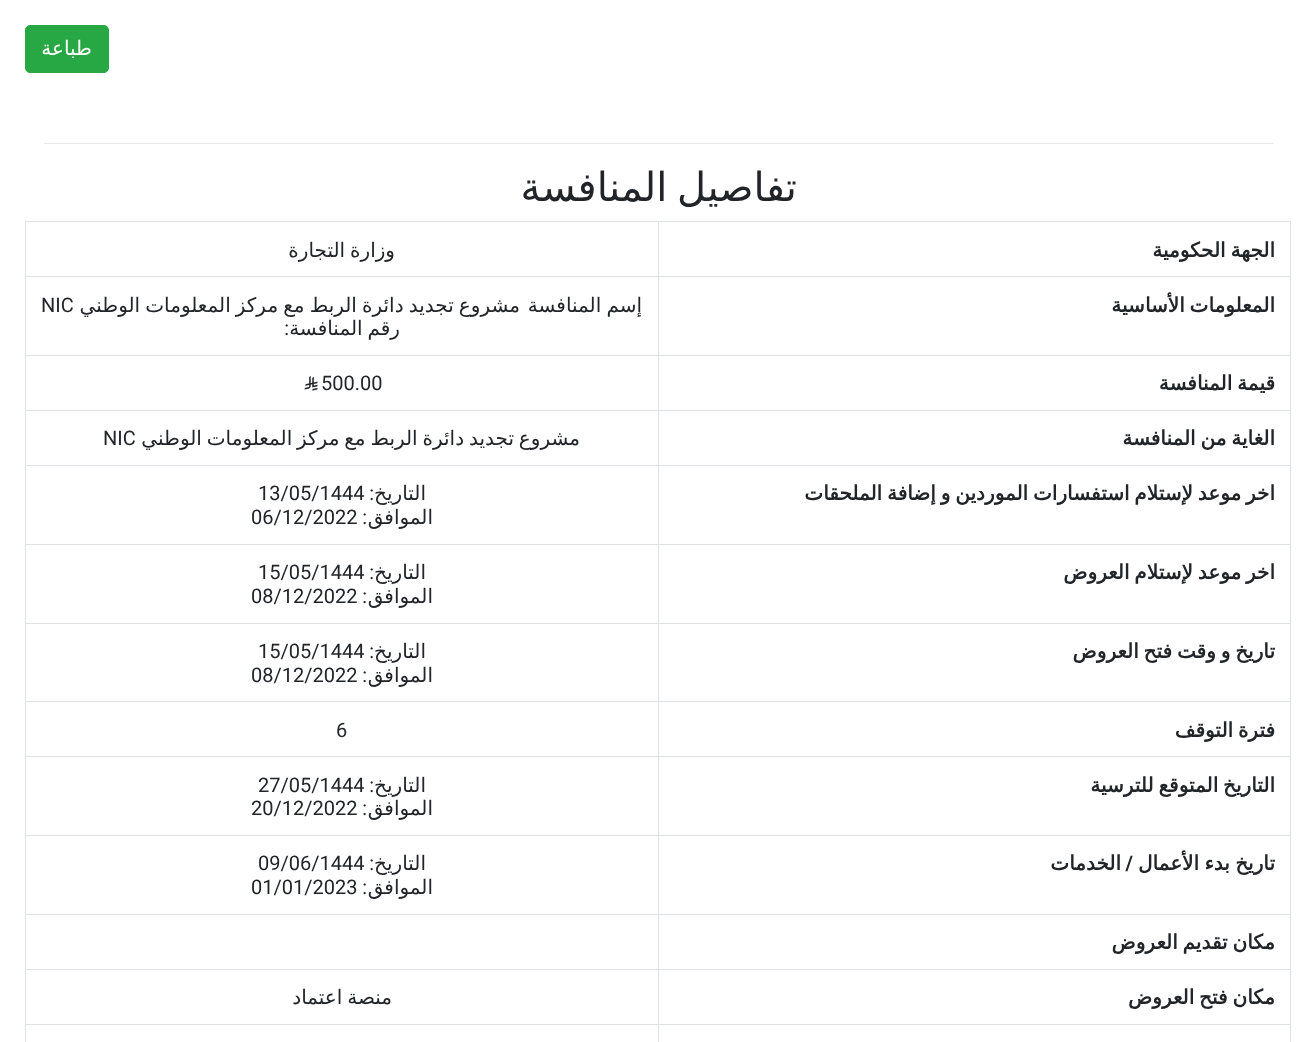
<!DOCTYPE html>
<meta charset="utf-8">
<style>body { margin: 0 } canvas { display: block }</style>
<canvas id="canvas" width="1316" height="1042"></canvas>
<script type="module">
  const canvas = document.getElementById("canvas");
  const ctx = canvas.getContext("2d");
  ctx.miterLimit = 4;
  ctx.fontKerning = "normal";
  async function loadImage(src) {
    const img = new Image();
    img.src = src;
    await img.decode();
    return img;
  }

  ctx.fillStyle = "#ffffff";
  ctx.fillRect(0, 0, 1316, 1042);
  ctx.fillStyle = "#28a745";
  ctx.beginPath();
  ctx.roundRect(25.5, 25.5, 83, 47, 4.5);
  ctx.fill();
  ctx.strokeStyle = "#28a745";
  ctx.stroke();
  ctx.direction = "rtl";
  ctx.font = "20px DejaVu Sans";
  ctx.fillStyle = "#ffffff";
  ctx.fillText("طباعة", 92, 55);
  ctx.fillStyle = "#e6e6e6";
  ctx.fillRect(44, 143, 1229, 1);
  ctx.wordSpacing = "-3px";
  ctx.font = "40px DejaVu Sans";
  ctx.fillStyle = "#212529";
  ctx.fillText("تفاصيل المنافسة", 797, 201);
  ctx.fillStyle = "#dee2e6";
  ctx.fillRect(25, 221, 1266, 1);
  ctx.fillRect(1290, 221, 1, 821);
  ctx.fillRect(25, 221, 1, 821);
  ctx.wordSpacing = "-1.5px";
  ctx.font = "bold 20px DejaVu Sans";
  ctx.fillStyle = "#212529";
  ctx.fillText("الجهة الحكومية", 1275, 257);
  ctx.fillStyle = "#dee2e6";
  ctx.fillRect(25, 276, 634, 1);
  ctx.fillRect(25, 355, 634, 1);
  ctx.fillRect(25, 410, 634, 1);
  ctx.fillRect(25, 465, 634, 1);
  ctx.fillRect(25, 544, 634, 1);
  ctx.fillRect(25, 623, 634, 1);
  ctx.fillRect(25, 701, 634, 1);
  ctx.fillRect(25, 756, 634, 1);
  ctx.fillRect(25, 835, 634, 1);
  ctx.fillRect(25, 914, 634, 1);
  ctx.fillRect(25, 969, 634, 1);
  ctx.fillRect(25, 1024, 634, 1);
  ctx.fillRect(658, 1024, 1, 18);
  ctx.fillRect(658, 1024, 633, 1);
  ctx.fillRect(658, 969, 1, 56);
  ctx.fillRect(658, 969, 633, 1);
  ctx.fillRect(658, 914, 1, 56);
  ctx.fillRect(658, 914, 633, 1);
  ctx.fillRect(658, 835, 1, 80);
  ctx.fillRect(658, 835, 633, 1);
  ctx.fillRect(658, 756, 1, 80);
  ctx.fillRect(658, 756, 633, 1);
  ctx.fillRect(658, 701, 1, 57);
  ctx.fillRect(658, 701, 633, 1);
  ctx.fillRect(658, 623, 1, 80);
  ctx.fillRect(658, 623, 633, 1);
  ctx.fillRect(658, 544, 1, 80);
  ctx.fillRect(658, 544, 633, 1);
  ctx.fillRect(658, 465, 1, 80);
  ctx.fillRect(658, 465, 633, 1);
  ctx.fillRect(658, 410, 1, 56);
  ctx.fillRect(658, 410, 633, 1);
  ctx.fillRect(658, 355, 1, 56);
  ctx.fillRect(658, 355, 633, 1);
  ctx.fillRect(658, 276, 1, 80);
  ctx.fillRect(658, 276, 633, 1);
  ctx.fillRect(658, 221, 1, 57);
  ctx.font = "20px DejaVu Sans";
  ctx.fillStyle = "#212529";
  ctx.fillText("وزارة التجارة", 395, 257);
  ctx.font = "bold 20px DejaVu Sans";
  ctx.fillText("المعلومات الأساسية", 1275, 312);
  ctx.wordSpacing = "-1.25px";
  ctx.font = "20px DejaVu Sans";
  ctx.fillText("إسم المنافسة", 642, 312);
  ctx.fillText("مشروع تجديد دائرة الربط مع مركز المعلومات الوطني", 520, 312);
  ctx.wordSpacing = "0px";
  ctx.direction = "ltr";
  ctx.font = "20px Roboto";
  ctx.fillText("NIC", 41, 312);
  ctx.wordSpacing = "-1.5px";
  ctx.direction = "rtl";
  ctx.font = "20px DejaVu Sans";
  ctx.fillText("رقم المنافسة", 400, 335);
  ctx.wordSpacing = "0px";
  ctx.font = "20px Roboto";
  ctx.fillText(":", 289, 335);
  ctx.wordSpacing = "-1.5px";
  ctx.font = "bold 20px DejaVu Sans";
  ctx.fillText("قيمة المنافسة", 1275, 390);
  ctx.wordSpacing = "0px";
  ctx.direction = "ltr";
  ctx.font = "20px Roboto";
  ctx.fillText("500.00", 321, 390);
  ctx.drawImage(await loadImage("img1.png"), 304, 376, 14, 15);
  ctx.wordSpacing = "-1.5px";
  ctx.direction = "rtl";
  ctx.font = "bold 20px DejaVu Sans";
  ctx.fillText("الغاية من المنافسة", 1275, 445);
  ctx.font = "20px DejaVu Sans";
  ctx.fillText("مشروع تجديد دائرة الربط مع مركز المعلومات الوطني", 580, 445);
  ctx.wordSpacing = "0px";
  ctx.direction = "ltr";
  ctx.font = "20px Roboto";
  ctx.fillText("NIC", 103, 445);
  ctx.wordSpacing = "-1.5px";
  ctx.direction = "rtl";
  ctx.font = "bold 20px DejaVu Sans";
  ctx.fillText("اخر موعد لإستلام استفسارات الموردين و إضافة الملحقات", 1275, 500);
  ctx.wordSpacing = "0px";
  ctx.font = "20px DejaVu Sans";
  ctx.fillText("التاريخ", 426, 500);
  ctx.font = "20px Roboto";
  ctx.fillText(":", 374, 500);
  ctx.direction = "ltr";
  ctx.fillText("13/05/1444", 258, 500);
  ctx.direction = "rtl";
  ctx.font = "20px DejaVu Sans";
  ctx.fillText("الموافق", 433, 524);
  ctx.font = "20px Roboto";
  ctx.fillText(":", 367, 524);
  ctx.direction = "ltr";
  ctx.fillText("06/12/2022", 251, 524);
  ctx.wordSpacing = "-1.5px";
  ctx.direction = "rtl";
  ctx.font = "bold 20px DejaVu Sans";
  ctx.fillText("اخر موعد لإستلام العروض", 1275, 579);
  ctx.wordSpacing = "0px";
  ctx.font = "20px DejaVu Sans";
  ctx.fillText("التاريخ", 426, 579);
  ctx.font = "20px Roboto";
  ctx.fillText(":", 374, 579);
  ctx.direction = "ltr";
  ctx.fillText("15/05/1444", 258, 579);
  ctx.direction = "rtl";
  ctx.font = "20px DejaVu Sans";
  ctx.fillText("الموافق", 433, 603);
  ctx.font = "20px Roboto";
  ctx.fillText(":", 367, 603);
  ctx.direction = "ltr";
  ctx.fillText("08/12/2022", 251, 603);
  ctx.wordSpacing = "-1.5px";
  ctx.direction = "rtl";
  ctx.font = "bold 20px DejaVu Sans";
  ctx.fillText("تاريخ و وقت فتح العروض", 1275, 658);
  ctx.wordSpacing = "0px";
  ctx.font = "20px DejaVu Sans";
  ctx.fillText("التاريخ", 426, 658);
  ctx.font = "20px Roboto";
  ctx.fillText(":", 374, 658);
  ctx.direction = "ltr";
  ctx.fillText("15/05/1444", 258, 658);
  ctx.direction = "rtl";
  ctx.font = "20px DejaVu Sans";
  ctx.fillText("الموافق", 433, 682);
  ctx.font = "20px Roboto";
  ctx.fillText(":", 367, 682);
  ctx.direction = "ltr";
  ctx.fillText("08/12/2022", 251, 682);
  ctx.wordSpacing = "-1.5px";
  ctx.direction = "rtl";
  ctx.font = "bold 20px DejaVu Sans";
  ctx.fillText("فترة التوقف", 1275, 737);
  ctx.wordSpacing = "0px";
  ctx.direction = "ltr";
  ctx.font = "20px Roboto";
  ctx.fillText("6", 336, 737);
  ctx.wordSpacing = "-1.5px";
  ctx.direction = "rtl";
  ctx.font = "bold 20px DejaVu Sans";
  ctx.fillText("التاريخ المتوقع للترسية", 1275, 792);
  ctx.wordSpacing = "0px";
  ctx.font = "20px DejaVu Sans";
  ctx.fillText("التاريخ", 426, 792);
  ctx.font = "20px Roboto";
  ctx.fillText(":", 374, 792);
  ctx.direction = "ltr";
  ctx.fillText("27/05/1444", 258, 792);
  ctx.direction = "rtl";
  ctx.font = "20px DejaVu Sans";
  ctx.fillText("الموافق", 433, 815);
  ctx.font = "20px Roboto";
  ctx.fillText(":", 367, 815);
  ctx.direction = "ltr";
  ctx.fillText("20/12/2022", 251, 815);
  ctx.wordSpacing = "-1px";
  ctx.direction = "rtl";
  ctx.font = "bold 20px DejaVu Sans";
  ctx.fillText("تاريخ بدء الأعمال", 1275, 870);
  ctx.wordSpacing = "0px";
  ctx.font = "bold 20px Roboto";
  ctx.fillText("/", 1133, 870);
  ctx.font = "bold 20px DejaVu Sans";
  ctx.fillText("الخدمات", 1121, 870);
  ctx.font = "20px DejaVu Sans";
  ctx.fillText("التاريخ", 426, 870);
  ctx.font = "20px Roboto";
  ctx.fillText(":", 374, 870);
  ctx.direction = "ltr";
  ctx.fillText("09/06/1444", 258, 870);
  ctx.direction = "rtl";
  ctx.font = "20px DejaVu Sans";
  ctx.fillText("الموافق", 433, 894);
  ctx.font = "20px Roboto";
  ctx.fillText(":", 367, 894);
  ctx.direction = "ltr";
  ctx.fillText("01/01/2023", 251, 894);
  ctx.wordSpacing = "-1.5px";
  ctx.direction = "rtl";
  ctx.font = "bold 20px DejaVu Sans";
  ctx.fillText("مكان تقديم العروض", 1275, 949);
  ctx.fillText("مكان فتح العروض", 1275, 1004);
  ctx.font = "20px DejaVu Sans";
  ctx.fillText("منصة اعتماد", 392, 1004);
</script>
